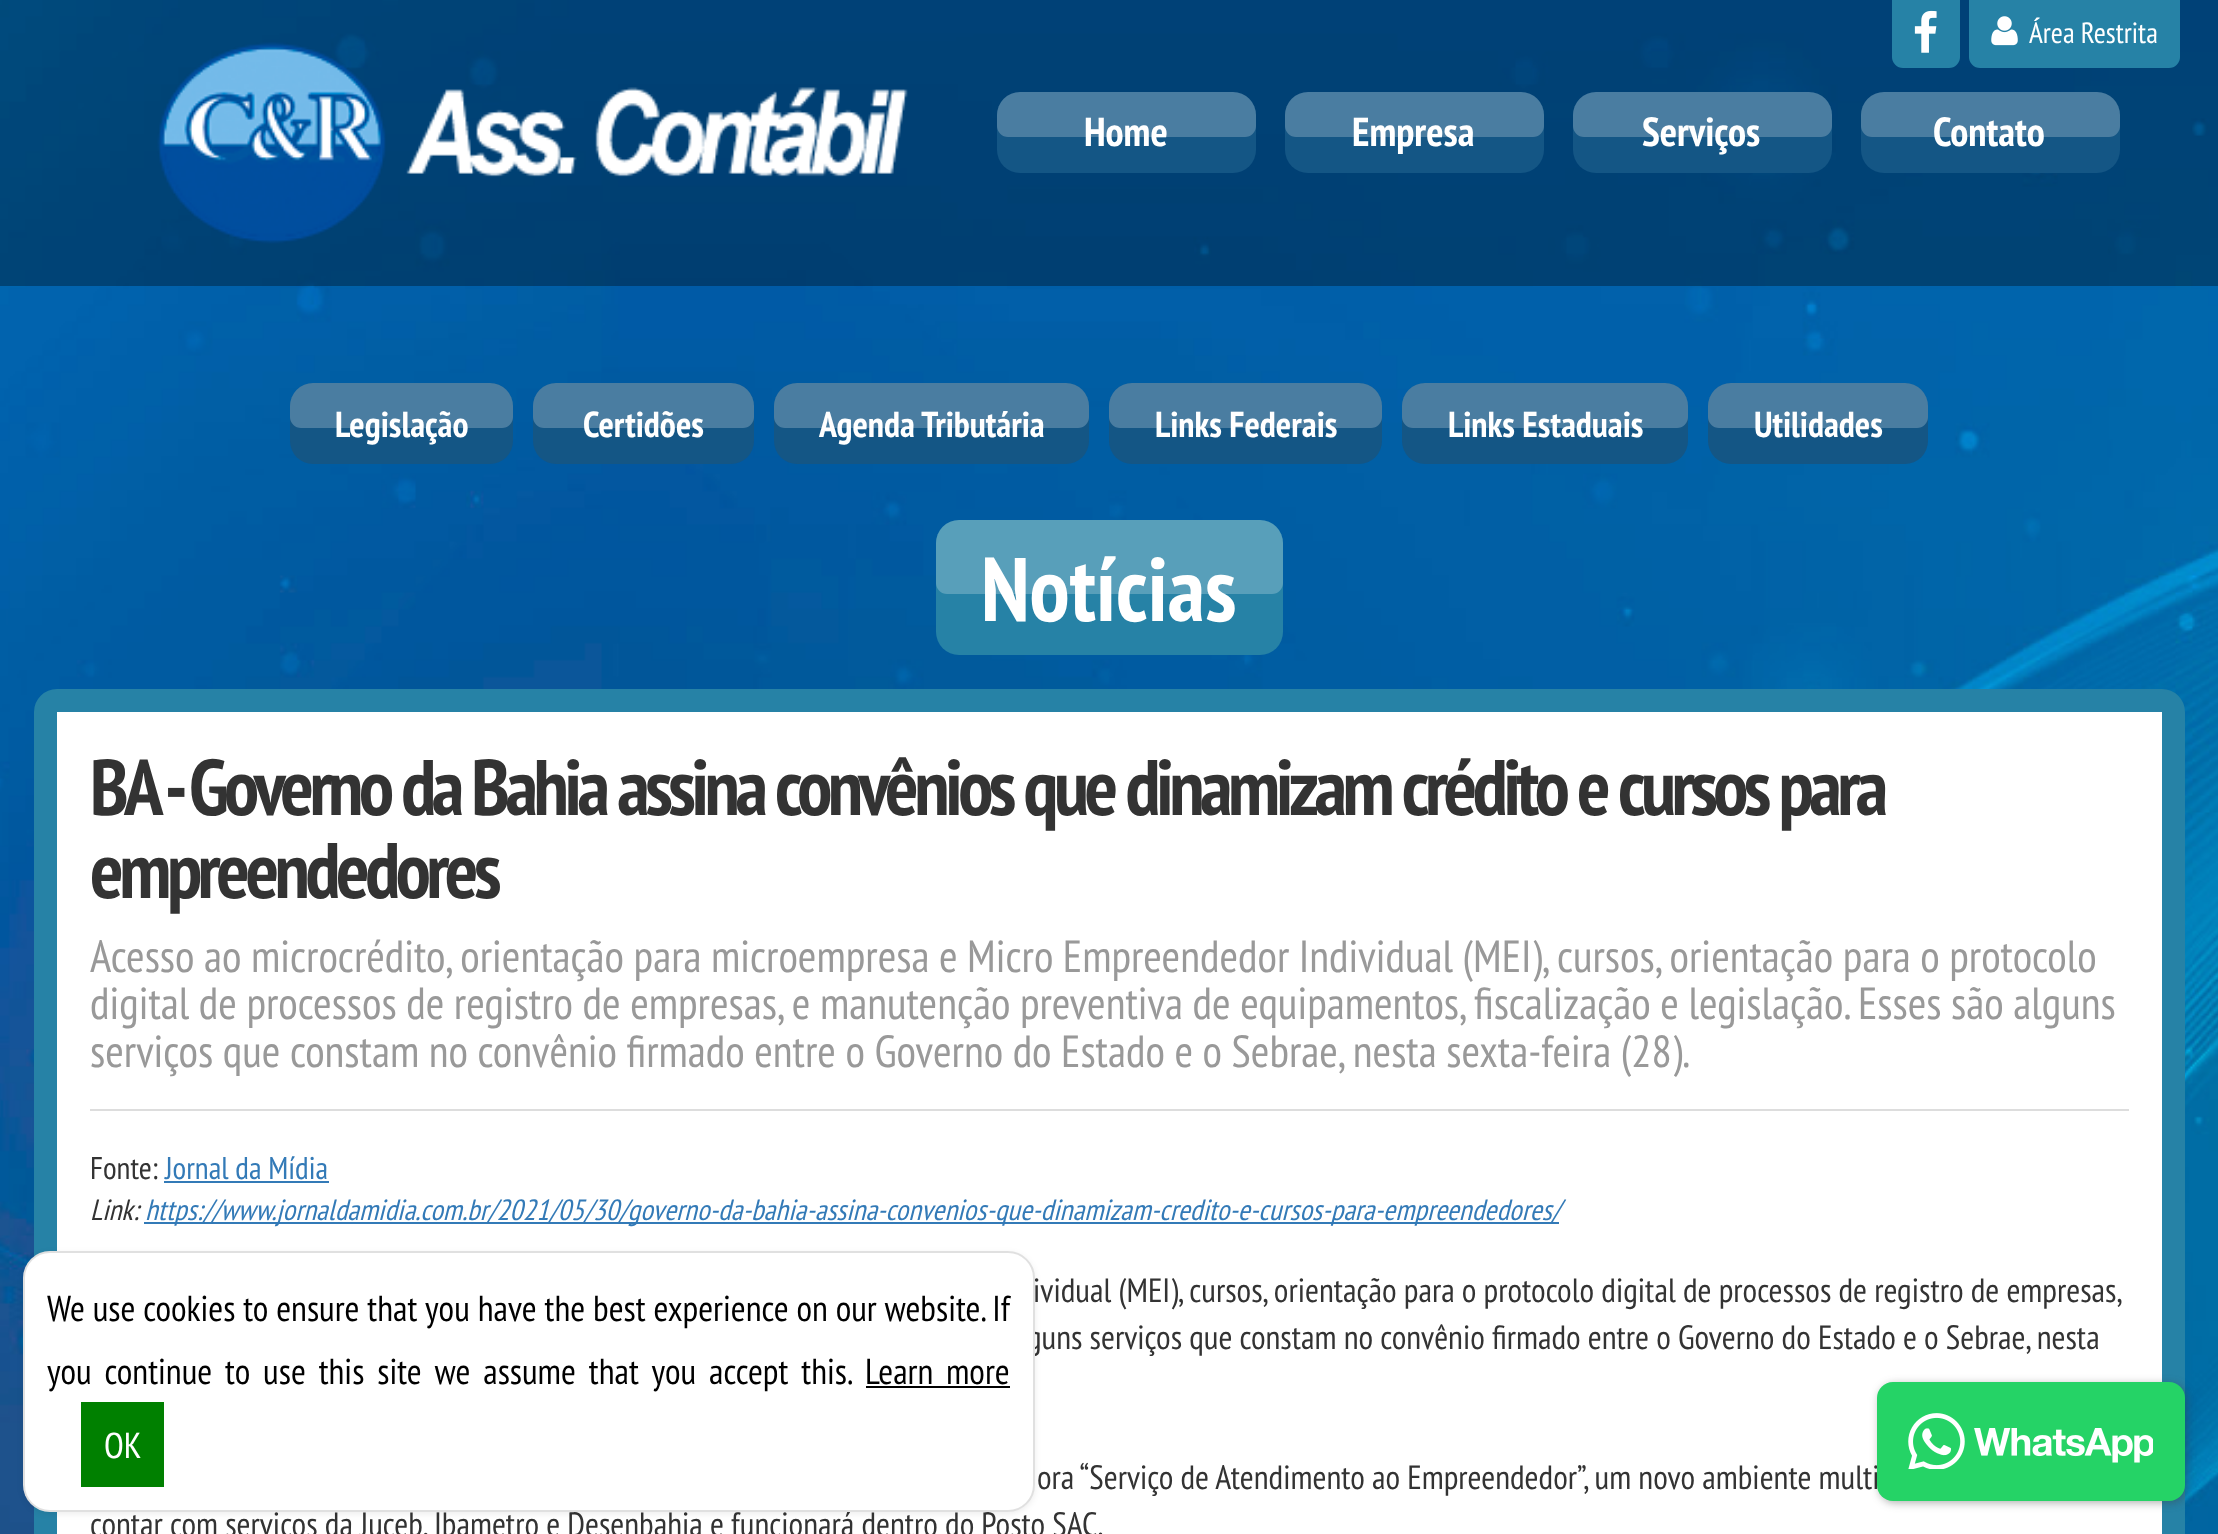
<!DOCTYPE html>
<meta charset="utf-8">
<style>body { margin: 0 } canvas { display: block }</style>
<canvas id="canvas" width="2218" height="1534"></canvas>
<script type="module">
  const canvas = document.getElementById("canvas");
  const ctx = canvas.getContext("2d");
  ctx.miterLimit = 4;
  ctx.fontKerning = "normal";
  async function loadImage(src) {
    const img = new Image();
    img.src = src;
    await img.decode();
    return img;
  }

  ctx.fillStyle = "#ffffff";
  ctx.fillRect(0, 0, 2218, 1534);
  ctx.drawImage(await loadImage("img1.png"), 0, 0, 2218, 1534);
  ctx.fillStyle = "rgba(0, 0, 0, 0.32)";
  ctx.fillRect(0, 0, 2218, 286);
  ctx.fillStyle = "#2682a6";
  ctx.beginPath();
  ctx.roundRect(1892, 0, 68, 68, [0, 0, 11, 11]);
  ctx.fill();
  ctx.drawImage(await loadImage("img2.png"), 1914, 10, 23, 43);
  ctx.beginPath();
  ctx.roundRect(1969, 0, 211, 68, [0, 0, 11, 11]);
  ctx.fill();
  ctx.drawImage(await loadImage("img3.png"), 1991, 16, 27, 30);
  ctx.font = "29.25px PT Sans Narrow";
  ctx.fillStyle = "#ffffff";
  ctx.fillText("Área Restrita", 2029, 43);
  ctx.drawImage(await loadImage("img4.png"), 157, 42, 751, 202);
  ctx.fillStyle = "#145685";
  ctx.beginPath();
  ctx.roundRect(997, 92, 259, 81, 23);
  ctx.fill();
  ctx.font = "bold 40.5px PT Sans Narrow";
  ctx.fillStyle = "#ffffff";
  ctx.fillText("Home", 1084, 146);
  ctx.fillStyle = "rgba(255, 255, 255, 0.23)";
  ctx.beginPath();
  ctx.roundRect(997, 92, 259, 45, [23, 23, 11, 11]);
  ctx.fill();
  ctx.fillStyle = "#145685";
  ctx.beginPath();
  ctx.roundRect(1285, 92, 259, 81, 23);
  ctx.fill();
  ctx.fillStyle = "#ffffff";
  ctx.fillText("Empresa", 1352, 146);
  ctx.fillStyle = "rgba(255, 255, 255, 0.23)";
  ctx.beginPath();
  ctx.roundRect(1285, 92, 259, 45, [23, 23, 11, 11]);
  ctx.fill();
  ctx.fillStyle = "#145685";
  ctx.beginPath();
  ctx.roundRect(1573, 92, 259, 81, 23);
  ctx.fill();
  ctx.fillStyle = "#ffffff";
  ctx.fillText("Serviços", 1642, 146);
  ctx.fillStyle = "rgba(255, 255, 255, 0.23)";
  ctx.beginPath();
  ctx.roundRect(1573, 92, 259, 45, [23, 23, 11, 11]);
  ctx.fill();
  ctx.fillStyle = "#145685";
  ctx.beginPath();
  ctx.roundRect(1861, 92, 259, 81, 23);
  ctx.fill();
  ctx.fillStyle = "#ffffff";
  ctx.fillText("Contato", 1933, 146);
  ctx.fillStyle = "rgba(255, 255, 255, 0.23)";
  ctx.beginPath();
  ctx.roundRect(1861, 92, 259, 45, [23, 23, 11, 11]);
  ctx.fill();
  ctx.fillStyle = "#145685";
  ctx.beginPath();
  ctx.roundRect(290, 383, 223, 81, 23);
  ctx.fill();
  ctx.font = "bold 36px PT Sans Narrow";
  ctx.fillStyle = "#ffffff";
  ctx.fillText("Legislação", 335, 437);
  ctx.fillStyle = "rgba(255, 255, 255, 0.23)";
  ctx.beginPath();
  ctx.roundRect(290, 383, 223, 45, [23, 23, 11, 11]);
  ctx.fill();
  ctx.fillStyle = "#145685";
  ctx.beginPath();
  ctx.roundRect(533, 383, 221, 81, 23);
  ctx.fill();
  ctx.fillStyle = "#ffffff";
  ctx.fillText("Certidões", 583, 437);
  ctx.fillStyle = "rgba(255, 255, 255, 0.23)";
  ctx.beginPath();
  ctx.roundRect(533, 383, 221, 45, [23, 23, 11, 11]);
  ctx.fill();
  ctx.fillStyle = "#145685";
  ctx.beginPath();
  ctx.roundRect(774, 383, 315, 81, 23);
  ctx.fill();
  ctx.fillStyle = "#ffffff";
  ctx.fillText("Agenda Tributária", 819, 437);
  ctx.fillStyle = "rgba(255, 255, 255, 0.23)";
  ctx.beginPath();
  ctx.roundRect(774, 383, 315, 45, [23, 23, 11, 11]);
  ctx.fill();
  ctx.fillStyle = "#145685";
  ctx.beginPath();
  ctx.roundRect(1109, 383, 273, 81, 23);
  ctx.fill();
  ctx.fillStyle = "#ffffff";
  ctx.fillText("Links Federais", 1155, 437);
  ctx.fillStyle = "rgba(255, 255, 255, 0.23)";
  ctx.beginPath();
  ctx.roundRect(1109, 383, 273, 45, [23, 23, 11, 11]);
  ctx.fill();
  ctx.fillStyle = "#145685";
  ctx.beginPath();
  ctx.roundRect(1402, 383, 286, 81, 23);
  ctx.fill();
  ctx.fillStyle = "#ffffff";
  ctx.fillText("Links Estaduais", 1448, 437);
  ctx.fillStyle = "rgba(255, 255, 255, 0.23)";
  ctx.beginPath();
  ctx.roundRect(1402, 383, 286, 45, [23, 23, 11, 11]);
  ctx.fill();
  ctx.fillStyle = "#145685";
  ctx.beginPath();
  ctx.roundRect(1708, 383, 220, 81, 23);
  ctx.fill();
  ctx.fillStyle = "#ffffff";
  ctx.fillText("Utilidades", 1754, 437);
  ctx.fillStyle = "rgba(255, 255, 255, 0.23)";
  ctx.beginPath();
  ctx.roundRect(1708, 383, 220, 45, [23, 23, 11, 11]);
  ctx.fill();
  ctx.fillStyle = "#2682a6";
  ctx.beginPath();
  ctx.roundRect(936, 520, 347, 135, 23);
  ctx.fill();
  ctx.font = "bold 90px PT Sans Narrow";
  ctx.fillStyle = "#ffffff";
  ctx.fillText("Notícias", 981, 621);
  ctx.fillStyle = "rgba(255, 255, 255, 0.23)";
  ctx.beginPath();
  ctx.roundRect(936, 520, 347, 74, [23, 23, 11, 11]);
  ctx.fill();
  ctx.fillStyle = "#ffffff";
  ctx.beginPath();
  ctx.roundRect(45.5, 700.5, 2128, 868, 11.5);
  ctx.fill();
  ctx.strokeStyle = "#2682a6";
  ctx.lineWidth = 23;
  ctx.stroke();
  ctx.letterSpacing = "-4.5px";
  ctx.font = "bold 78.75px PT Sans Narrow";
  ctx.fillStyle = "#333333";
  ctx.fillText("BA - Governo da Bahia assina convênios que dinamizam crédito e cursos para", 90, 815);
  ctx.fillText("empreendedores", 90, 898);
  ctx.letterSpacing = "0px";
  ctx.font = "45px PT Sans Narrow";
  ctx.fillStyle = "#999999";
  ctx.fillText("Acesso ao microcrédito, orientação para microempresa e Micro Empreendedor Individual (MEI), cursos, orientação para o protocolo", 90, 972);
  ctx.fillText("digital de processos de registro de empresas, e manutenção preventiva de equipamentos, fiscalização e legislação. Esses são alguns", 90, 1019);
  ctx.fillText("serviços que constam no convênio firmado entre o Governo do Estado e o Sebrae, nesta sexta-feira (28).", 90, 1067);
  ctx.fillStyle = "#dddddd";
  ctx.fillRect(90, 1109, 2039, 2);
  ctx.font = "31.5px PT Sans Narrow";
  ctx.fillStyle = "#333333";
  ctx.fillText("Fonte:", 90, 1179);
  ctx.fillStyle = "#337ab7";
  ctx.fillText("Jornal da Mídia", 165, 1179);
  ctx.fillRect(164, 1181, 165, 2);
  ctx.font = "italic 29.25px PT Sans Narrow";
  ctx.fillStyle = "#333333";
  ctx.fillText("Link:", 90, 1220);
  ctx.fillStyle = "#337ab7";
  ctx.fillRect(144, 1222, 1415, 2);
  ctx.fillText("https://www.jornaldamidia.com.br/2021/05/30/governo-da-bahia-assina-convenios-que-dinamizam-credito-e-cursos-para-empreendedores/", 145, 1220);
  ctx.font = "33.75px PT Sans Narrow";
  ctx.fillStyle = "#333333";
  ctx.fillText("ividual (MEI), cursos, orientação para o protocolo digital de processos de registro de empresas,", 1033, 1302);
  ctx.fillText("guns serviços que constam no convênio firmado entre o Governo do Estado e o Sebrae, nesta", 1027, 1349);
  ctx.fillText("ora “Serviço de Atendimento ao Empreendedor”, um novo ambiente multi", 1037, 1489);
  ctx.fillText("contar com serviços da Juceb, Ibametro e Desenbahia e funcionará dentro do Posto SAC.", 90, 1536);
  ctx.fillStyle = "rgba(60, 60, 60, 0.4)";
  ctx.filter = "blur(4.5px)";
  ctx.beginPath();
  ctx.roundRect(1879, 1384, 308, 119, 16);
  ctx.fill();
  ctx.filter = "none";
  ctx.fillStyle = "#25d366";
  ctx.beginPath();
  ctx.roundRect(1877, 1382, 308, 119, 16);
  ctx.fill();
  ctx.drawImage(await loadImage("img5.png"), 1908, 1413, 245, 56);
  ctx.fillStyle = "rgba(0, 0, 0, 0.07)";
  ctx.filter = "blur(3px)";
  ctx.beginPath();
  ctx.roundRect(23, 1253, 1012, 261, 27);
  ctx.fill();
  ctx.filter = "none";
  ctx.fillStyle = "#ffffff";
  ctx.beginPath();
  ctx.roundRect(23, 1251, 1012, 261, 27);
  ctx.fill();
  ctx.beginPath();
  ctx.roundRect(24, 1252, 1010, 259, 26);
  ctx.strokeStyle = "rgba(0, 0, 0, 0.12)";
  ctx.lineWidth = 2;
  ctx.stroke();
  ctx.wordSpacing = "0.25px";
  ctx.font = "36px PT Sans Narrow";
  ctx.fillStyle = "#000000";
  ctx.fillText("We use cookies to ensure that you have the best experience on our website. If", 47, 1321);
  ctx.wordSpacing = "5.25px";
  ctx.fillText("you continue to use this site we assume that you accept this.", 47, 1384);
  ctx.wordSpacing = "5px";
  ctx.fillText("Learn more", 865, 1384);
  ctx.fillRect(866, 1386, 144, 2);
  ctx.fillStyle = "#008000";
  ctx.fillRect(81, 1402, 83, 85);
  ctx.wordSpacing = "0px";
  ctx.fillStyle = "#ffffff";
  ctx.fillText("OK", 104, 1458);
</script>
